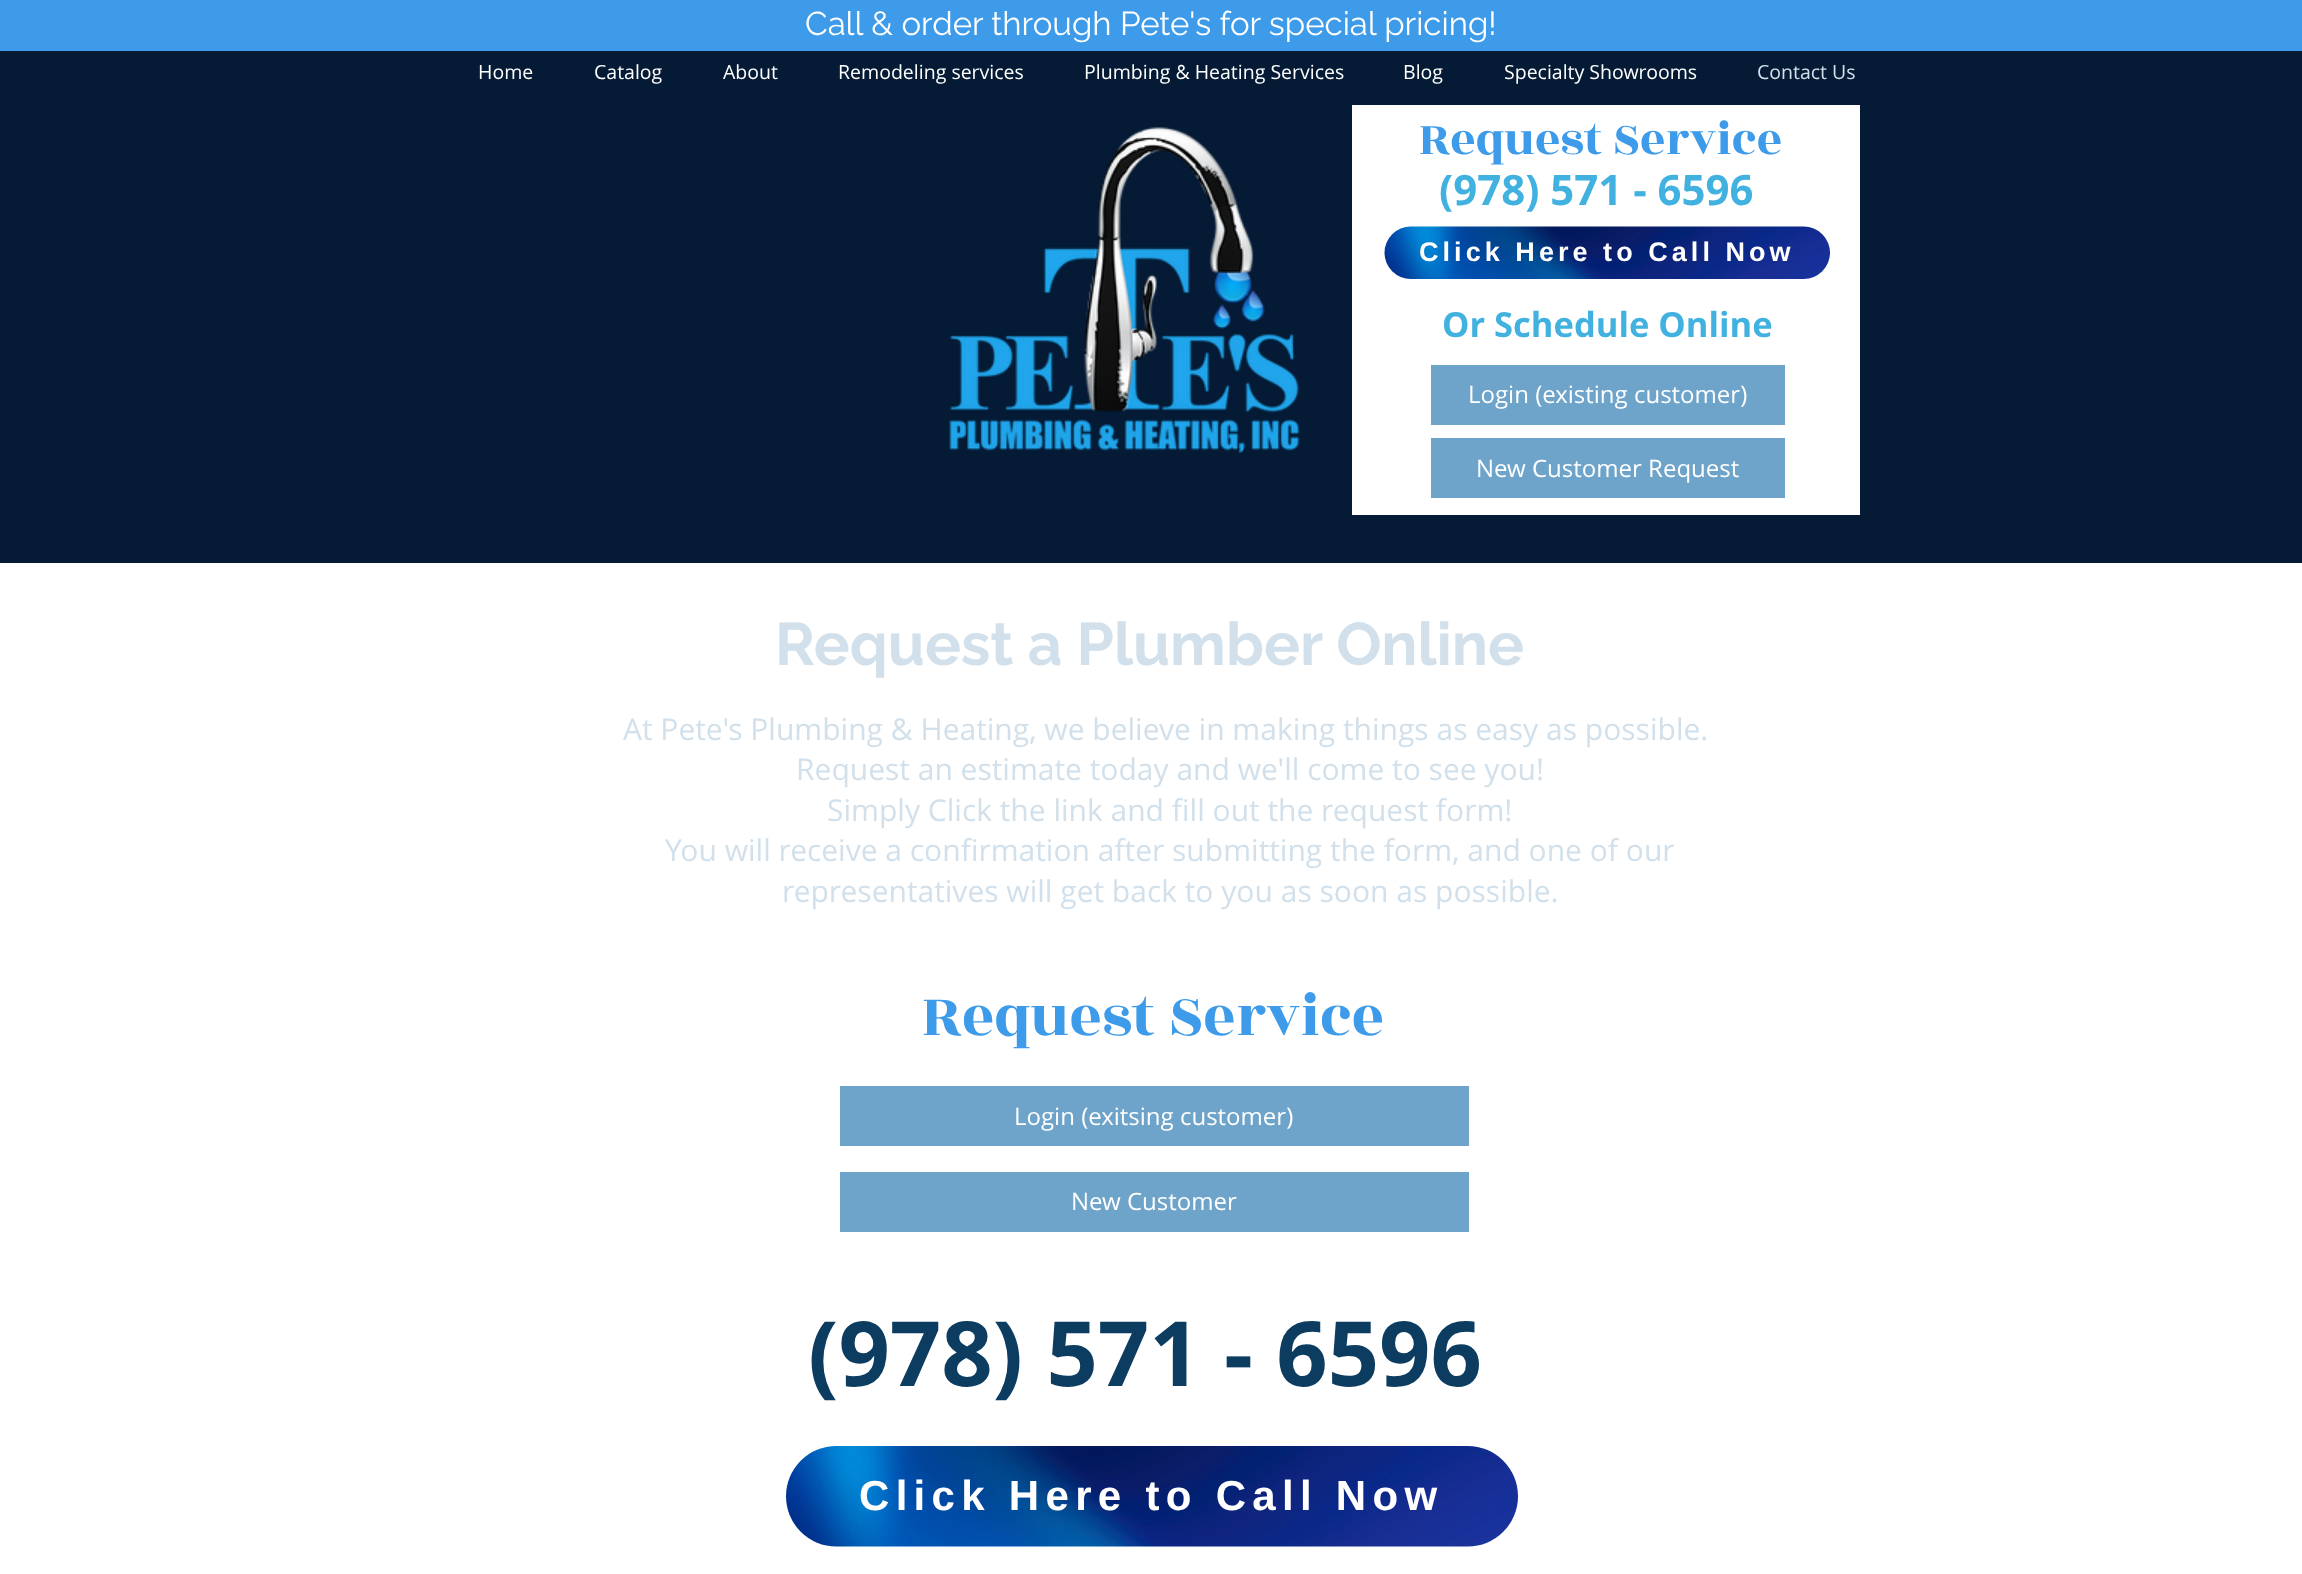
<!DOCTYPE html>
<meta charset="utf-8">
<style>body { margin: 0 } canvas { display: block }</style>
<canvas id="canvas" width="2302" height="1574"></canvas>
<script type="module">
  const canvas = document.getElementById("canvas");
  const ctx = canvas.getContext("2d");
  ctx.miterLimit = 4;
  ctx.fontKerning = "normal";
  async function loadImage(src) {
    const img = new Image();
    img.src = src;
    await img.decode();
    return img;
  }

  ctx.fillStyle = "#ffffff";
  ctx.fillRect(0, 0, 2302, 1574);
  ctx.fillStyle = "#3d9be9";
  ctx.fillRect(0, 0, 2302, 51);
  ctx.font = "33px Raleway";
  ctx.fillStyle = "#ffffff";
  ctx.fillText("Call & order through Pete's for special pricing!", 805, 35);
  ctx.fillStyle = "#051b35";
  ctx.fillRect(0, 51, 2302, 512);
  ctx.font = "19.5px Open Sans";
  ctx.fillStyle = "#ffffff";
  ctx.fillText("Home", 478, 79);
  ctx.fillText("Catalog", 594, 79);
  ctx.fillText("About", 723, 79);
  ctx.fillText("Remodeling services", 838, 79);
  ctx.fillText("Plumbing & Heating Services", 1084, 79);
  ctx.fillText("Blog", 1403, 79);
  ctx.fillText("Specialty Showrooms", 1504, 79);
  ctx.fillStyle = "#d1e0eb";
  ctx.fillText("Contact Us", 1757, 79);
  ctx.fillStyle = "#ffffff";
  ctx.fillRect(1352, 105, 508, 410);
  ctx.drawImage(await loadImage("img1.png"), 949, 127, 351, 327);
  ctx.font = "49.5px Rozha One";
  ctx.fillStyle = "#3d9be9";
  ctx.fillText("Request Service", 1419, 154);
  ctx.font = "bold 42px Open Sans";
  ctx.fillStyle = "#41b1e0";
  ctx.fillText("(978) 571 - 6596", 1439, 205);
  ctx.drawImage(await loadImage("img2.png"), 1384, 226, 446, 53);
  ctx.letterSpacing = "4.05px";
  ctx.font = "bold 27px Liberation Sans";
  ctx.fillStyle = "#ffffff";
  ctx.fillText("Click Here to Call Now", 1419, 261);
  ctx.letterSpacing = "0px";
  ctx.font = "bold 34.5px Open Sans";
  ctx.fillStyle = "#41b1e0";
  ctx.fillText("Or Schedule Online", 1442, 337);
  ctx.fillStyle = "#6ea4ca";
  ctx.fillRect(1431, 365, 354, 60);
  ctx.font = "24px Open Sans";
  ctx.fillStyle = "#ffffff";
  ctx.fillText("Login (existing customer)", 1468, 403);
  ctx.fillStyle = "#6ea4ca";
  ctx.fillRect(1431, 438, 354, 60);
  ctx.fillStyle = "#ffffff";
  ctx.fillText("New Customer Request", 1476, 477);
  ctx.font = "bold 60px Raleway";
  ctx.fillStyle = "#d1e0eb";
  ctx.fillText("Request a Plumber Online", 775, 665);
  ctx.font = "30px Open Sans";
  ctx.fillText("At Pete's Plumbing & Heating, we believe in making things as easy as possible.", 623, 740);
  ctx.fillText("Request an estimate today and we'll come to see you!", 796, 780);
  ctx.fillText("Simply Click the link and fill out the request form!", 827, 821);
  ctx.fillText("You will receive a confirmation after submitting the form, and one of our", 665, 861);
  ctx.fillText("representatives will get back to you as soon as possible.", 782, 902);
  ctx.font = "63px Rozha One";
  ctx.fillStyle = "#3d9be9";
  ctx.fillText("Request Service", 922, 1035);
  ctx.fillStyle = "#6ea4ca";
  ctx.fillRect(840, 1086, 629, 60);
  ctx.font = "24px Open Sans";
  ctx.fillStyle = "#ffffff";
  ctx.fillText("Login (exitsing customer)", 1014, 1125);
  ctx.fillStyle = "#6ea4ca";
  ctx.fillRect(840, 1172, 629, 60);
  ctx.fillStyle = "#ffffff";
  ctx.fillText("New Customer", 1071, 1210);
  ctx.font = "bold 90px Open Sans";
  ctx.fillStyle = "#0c3c60";
  ctx.fillText("(978) 571 - 6596", 808, 1386);
  ctx.drawImage(await loadImage("img3.png"), 785, 1446, 734, 101);
  ctx.letterSpacing = "6.3px";
  ctx.font = "bold 42px Liberation Sans";
  ctx.fillStyle = "#ffffff";
  ctx.fillText("Click Here to Call Now", 859, 1510);
</script>
